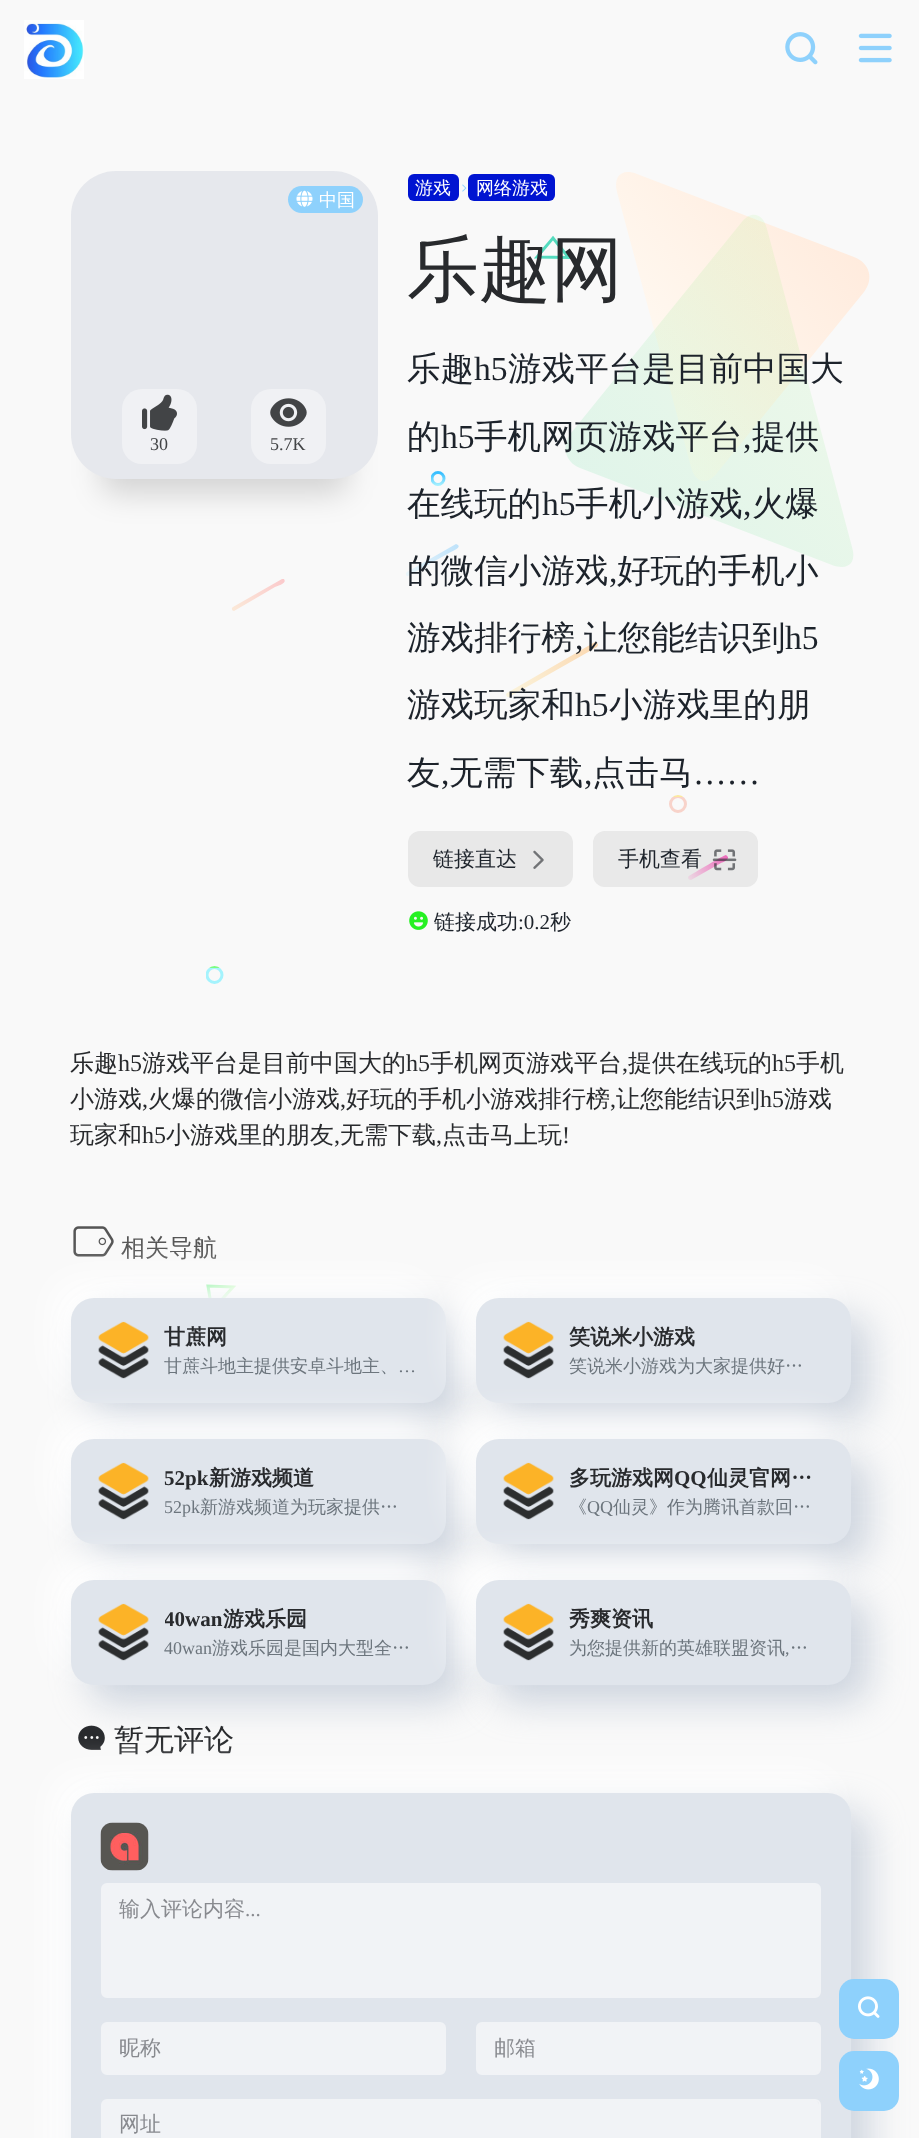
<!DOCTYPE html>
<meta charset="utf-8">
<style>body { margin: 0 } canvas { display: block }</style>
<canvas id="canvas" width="919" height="2138"></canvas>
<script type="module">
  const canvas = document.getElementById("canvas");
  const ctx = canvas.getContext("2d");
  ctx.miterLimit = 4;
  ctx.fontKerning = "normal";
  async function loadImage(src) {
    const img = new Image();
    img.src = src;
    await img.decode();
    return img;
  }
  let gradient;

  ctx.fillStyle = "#f9f9f9";
  ctx.fillRect(0, 0, 919, 2138);
  ctx.drawImage(await loadImage("img1.png"), 24, 20, 60, 59);
  ctx.drawImage(await loadImage("img2.png"), 785, 32, 33, 33);
  ctx.drawImage(await loadImage("img3.png"), 858, 33, 34, 30);
  gradient = ctx.createLinearGradient(804, 172, 583, 335);
  gradient.addColorStop(0, "#ffebdd");
  gradient.addColorStop(1, "#fffbf4");
  ctx.fillStyle = gradient;
  ctx.beginPath();
  ctx.moveTo(691, 467);
  ctx.lineTo(617, 192);
  ctx.bezierCurveTo(613, 176, 622, 168, 637, 174);
  ctx.lineTo(854, 257);
  ctx.bezierCurveTo(870, 263, 874, 279, 864, 292);
  ctx.lineTo(717, 473);
  ctx.bezierCurveTo(707, 486, 695, 483, 691, 467);
  ctx.closePath();
  ctx.fill("evenodd");
  ctx.beginPath();
  ctx.moveTo(568.5, 257.5);
  ctx.lineTo(553, 238);
  ctx.lineTo(537, 257);
  ctx.closePath();
  gradient = ctx.createLinearGradient(537, 240, 569, 256);
  gradient.addColorStop(0, "#cefdec");
  gradient.addColorStop(0, "#55dbbe");
  ctx.strokeStyle = gradient;
  ctx.lineWidth = 3;
  ctx.stroke();
  gradient = ctx.createLinearGradient(766, 215, 525, 418);
  gradient.addColorStop(0, "rgba(149, 244, 105, 0.11)");
  gradient.addColorStop(1, "rgba(21, 208, 110, 0.11)");
  ctx.fillStyle = gradient;
  ctx.beginPath();
  ctx.moveTo(767, 229);
  ctx.lineTo(852, 547);
  ctx.bezierCurveTo(857, 563, 848, 571, 832, 565);
  ctx.lineTo(580, 468);
  ctx.bezierCurveTo(565, 462, 561, 446, 571, 433);
  ctx.lineTo(741, 223);
  ctx.bezierCurveTo(751, 210, 763, 213, 767, 229);
  ctx.closePath();
  ctx.fill("evenodd");
  ctx.save();
  ctx.beginPath();
  ctx.rect(431, 471, 15, 15);
  ctx.clip();
  ctx.beginPath();
  ctx.arc(438, 478.5, 6, 0, Math.PI * 2);
  gradient = ctx.createLinearGradient(438, 473, 438, 485);
  gradient.addColorStop(0, "#38beff");
  gradient.addColorStop(1, "#a5f0ff");
  ctx.strokeStyle = gradient;
  ctx.stroke();
  ctx.restore();
  gradient = ctx.createLinearGradient(406, 575, 458, 545);
  gradient.addColorStop(0, "#ebf6fa");
  gradient.addColorStop(1, "#bee2fa");
  ctx.fillStyle = gradient;
  ctx.beginPath();
  ctx.moveTo(407, 572);
  ctx.lineTo(456, 544);
  ctx.lineTo(458, 545);
  ctx.bezierCurveTo(461, 548, 454, 550, 449, 553);
  ctx.lineTo(408, 576);
  ctx.bezierCurveTo(406, 577, 405, 573, 407, 572);
  ctx.closePath();
  ctx.fill("evenodd");
  gradient = ctx.createLinearGradient(232, 610, 284, 580);
  gradient.addColorStop(0, "#fbe9d8");
  gradient.addColorStop(1, "#fbcacc");
  ctx.fillStyle = gradient;
  ctx.beginPath();
  ctx.moveTo(233, 607);
  ctx.lineTo(282, 579);
  ctx.lineTo(284, 579);
  ctx.bezierCurveTo(287, 583, 280, 585, 275, 587);
  ctx.lineTo(234, 611);
  ctx.bezierCurveTo(232, 611, 231, 608, 233, 607);
  ctx.closePath();
  ctx.fill("evenodd");
  gradient = ctx.createLinearGradient(507, 696, 597, 644);
  gradient.addColorStop(0, "#fbf4dc");
  gradient.addColorStop(1, "#fbd8b1");
  ctx.fillStyle = gradient;
  ctx.beginPath();
  ctx.moveTo(507, 693);
  ctx.lineTo(595, 642);
  ctx.bezierCurveTo(596, 642, 598, 643, 598, 645);
  ctx.lineTo(597, 647);
  ctx.lineTo(509, 697);
  ctx.bezierCurveTo(507, 698, 505, 694, 507, 693);
  ctx.closePath();
  ctx.fill("evenodd");
  ctx.beginPath();
  ctx.arc(678, 804, 7.5, 0, Math.PI * 2);
  gradient = ctx.createLinearGradient(678, 797, 678, 812);
  gradient.addColorStop(0, "#fce8a0");
  gradient.addColorStop(0, "#f8d3ca");
  ctx.strokeStyle = gradient;
  ctx.stroke();
  gradient = ctx.createLinearGradient(689, 879, 727, 856);
  gradient.addColorStop(0, "#fde5f2");
  gradient.addColorStop(1, "#fd66c3");
  ctx.fillStyle = gradient;
  ctx.beginPath();
  ctx.moveTo(689, 876);
  ctx.bezierCurveTo(694, 873, 724, 855, 726, 855);
  ctx.lineTo(728, 857);
  ctx.bezierCurveTo(729, 860, 721, 863, 721, 863);
  ctx.lineTo(691, 880);
  ctx.bezierCurveTo(689, 880, 688, 879, 688, 877);
  ctx.closePath();
  ctx.fill("evenodd");
  ctx.save();
  ctx.beginPath();
  ctx.rect(206, 966, 18, 18);
  ctx.clip();
  ctx.beginPath();
  ctx.arc(214.5, 975, 7.5, 0, Math.PI * 2);
  gradient = ctx.createLinearGradient(215, 968, 215, 983);
  gradient.addColorStop(0, "#7bfd81");
  gradient.addColorStop(0, "#a4f3fd");
  ctx.strokeStyle = gradient;
  ctx.stroke();
  ctx.restore();
  ctx.beginPath();
  ctx.moveTo(233, 1287);
  ctx.lineTo(208, 1286);
  ctx.lineTo(212, 1310.5);
  ctx.closePath();
  gradient = ctx.createLinearGradient(208, 1286, 230, 1305);
  gradient.addColorStop(0, "#55ee71");
  gradient.addColorStop(1, "#dbfdc4");
  ctx.strokeStyle = gradient;
  ctx.stroke();
  ctx.fillStyle = "rgba(0, 0, 0, 0.15)";
  ctx.filter = "blur(15px)";
  ctx.beginPath();
  ctx.roundRect(101, 246, 247, 248, 15);
  ctx.fill();
  ctx.filter = "none";
  ctx.fillStyle = "#e6e8ed";
  ctx.beginPath();
  ctx.roundRect(71, 171, 307, 308, 45);
  ctx.fill();
  ctx.fillStyle = "#8ed1fc";
  ctx.beginPath();
  ctx.roundRect(288, 186, 75, 27, 13.5);
  ctx.fill();
  ctx.drawImage(await loadImage("img4.png"), 296, 190, 17, 17);
  ctx.font = "500 18px WenQuanYi Zen Hei";
  ctx.fillStyle = "#ffffff";
  ctx.fillText("中国", 319, 206);
  ctx.fillStyle = "#f0f1f4";
  ctx.beginPath();
  ctx.roundRect(122, 389, 75, 75, 20);
  ctx.fill();
  ctx.drawImage(await loadImage("img5.png"), 142, 394, 35, 37);
  ctx.font = "18px Liberation Serif";
  ctx.fillStyle = "#424446";
  ctx.fillText("30", 150, 450);
  ctx.fillStyle = "#f0f1f4";
  ctx.beginPath();
  ctx.roundRect(251, 389, 75, 75, 20);
  ctx.fill();
  ctx.drawImage(await loadImage("img6.png"), 270, 398, 37, 29);
  ctx.fillStyle = "#424446";
  ctx.fillText("5.7K", 270, 450);
  ctx.fillStyle = "#0014d1";
  ctx.beginPath();
  ctx.roundRect(408, 174, 51, 27, 6);
  ctx.fill();
  ctx.font = "500 18px WenQuanYi Zen Hei";
  ctx.fillStyle = "#ffffff";
  ctx.fillText("游戏", 415, 194);
  ctx.drawImage(await loadImage("img7.png"), 462, 184, 5, 8);
  ctx.fillStyle = "#0014d1";
  ctx.beginPath();
  ctx.roundRect(468, 174, 87, 27, 6);
  ctx.fill();
  ctx.fillStyle = "#ffffff";
  ctx.fillText("网络游戏", 476, 194);
  ctx.font = "500 72px WenQuanYi Zen Hei";
  ctx.fillStyle = "#282a2d";
  ctx.fillText("乐趣网", 407, 294);
  ctx.font = "500 33.6px WenQuanYi Zen Hei";
  ctx.fillStyle = "#1d232b";
  ctx.fillText("乐趣", 407, 380);
  ctx.font = "33.6px Liberation Serif";
  ctx.fillText("h5", 474, 380);
  ctx.font = "500 33.6px WenQuanYi Zen Hei";
  ctx.fillText("游戏平台是目前中国大", 508, 380);
  ctx.fillText("的", 407, 448);
  ctx.font = "33.6px Liberation Serif";
  ctx.fillText("h5", 441, 448);
  ctx.font = "500 33.6px WenQuanYi Zen Hei";
  ctx.fillText("手机网页游戏平台", 474, 448);
  ctx.font = "33.6px Liberation Serif";
  ctx.fillText(",", 743, 448);
  ctx.font = "500 33.6px WenQuanYi Zen Hei";
  ctx.fillText("提供", 752, 448);
  ctx.fillText("在线玩的", 407, 515);
  ctx.font = "33.6px Liberation Serif";
  ctx.fillText("h5", 542, 515);
  ctx.font = "500 33.6px WenQuanYi Zen Hei";
  ctx.fillText("手机小游戏", 575, 515);
  ctx.font = "33.6px Liberation Serif";
  ctx.fillText(",", 743, 515);
  ctx.font = "500 33.6px WenQuanYi Zen Hei";
  ctx.fillText("火爆", 752, 515);
  ctx.fillText("的微信小游戏", 407, 582);
  ctx.font = "33.6px Liberation Serif";
  ctx.fillText(",", 609, 582);
  ctx.font = "500 33.6px WenQuanYi Zen Hei";
  ctx.fillText("好玩的手机小", 617, 582);
  ctx.fillText("游戏排行榜", 407, 649);
  ctx.font = "33.6px Liberation Serif";
  ctx.fillText(",", 575, 649);
  ctx.font = "500 33.6px WenQuanYi Zen Hei";
  ctx.fillText("让您能结识到", 584, 649);
  ctx.font = "33.6px Liberation Serif";
  ctx.fillText("h5", 785, 649);
  ctx.font = "500 33.6px WenQuanYi Zen Hei";
  ctx.fillText("游戏玩家和", 407, 716);
  ctx.font = "33.6px Liberation Serif";
  ctx.fillText("h5", 575, 716);
  ctx.font = "500 33.6px WenQuanYi Zen Hei";
  ctx.fillText("小游戏里的朋", 609, 716);
  ctx.fillText("友", 407, 784);
  ctx.font = "33.6px Liberation Serif";
  ctx.fillText(",", 441, 784);
  ctx.font = "500 33.6px WenQuanYi Zen Hei";
  ctx.fillText("无需下载", 449, 784);
  ctx.font = "33.6px Liberation Serif";
  ctx.fillText(",", 584, 784);
  ctx.font = "500 33.6px WenQuanYi Zen Hei";
  ctx.fillText("点击马", 592, 784);
  ctx.font = "33.6px Liberation Serif";
  ctx.fillText("……", 693, 784);
  ctx.fillStyle = "#e8e8e8";
  ctx.beginPath();
  ctx.roundRect(408, 831, 165, 56, 12);
  ctx.fill();
  ctx.font = "500 21px WenQuanYi Zen Hei";
  ctx.fillStyle = "#1d232b";
  ctx.fillText("链接直达", 433, 866);
  ctx.drawImage(await loadImage("img8.png"), 533, 850, 11, 19);
  ctx.fillStyle = "rgba(138, 138, 138, 0.15)";
  ctx.beginPath();
  ctx.roundRect(593, 831, 165, 56, 12);
  ctx.fill();
  ctx.fillStyle = "#1d232b";
  ctx.fillText("手机查看", 618, 866);
  ctx.drawImage(await loadImage("img9.png"), 712, 849, 25, 22);
  ctx.drawImage(await loadImage("img10.png"), 409, 911, 19, 19);
  ctx.fillText("链接成功", 434, 929);
  ctx.font = "21px Liberation Serif";
  ctx.fillText(":0.2", 518, 929);
  ctx.font = "500 21px WenQuanYi Zen Hei";
  ctx.fillText("秒", 550, 929);
  ctx.font = "500 24px WenQuanYi Zen Hei";
  ctx.fillStyle = "#282a2d";
  ctx.fillText("乐趣", 70, 1071);
  ctx.font = "24px Liberation Serif";
  ctx.fillText("h5", 118, 1071);
  ctx.font = "500 24px WenQuanYi Zen Hei";
  ctx.fillText("游戏平台是目前中国大的", 142, 1071);
  ctx.font = "24px Liberation Serif";
  ctx.fillText("h5", 406, 1071);
  ctx.font = "500 24px WenQuanYi Zen Hei";
  ctx.fillText("手机网页游戏平台", 430, 1071);
  ctx.font = "24px Liberation Serif";
  ctx.fillText(",", 622, 1071);
  ctx.font = "500 24px WenQuanYi Zen Hei";
  ctx.fillText("提供在线玩的", 628, 1071);
  ctx.font = "24px Liberation Serif";
  ctx.fillText("h5", 772, 1071);
  ctx.font = "500 24px WenQuanYi Zen Hei";
  ctx.fillText("手机", 796, 1071);
  ctx.fillText("小游戏", 70, 1107);
  ctx.font = "24px Liberation Serif";
  ctx.fillText(",", 142, 1107);
  ctx.font = "500 24px WenQuanYi Zen Hei";
  ctx.fillText("火爆的微信小游戏", 148, 1107);
  ctx.font = "24px Liberation Serif";
  ctx.fillText(",", 340, 1107);
  ctx.font = "500 24px WenQuanYi Zen Hei";
  ctx.fillText("好玩的手机小游戏排行榜", 346, 1107);
  ctx.font = "24px Liberation Serif";
  ctx.fillText(",", 610, 1107);
  ctx.font = "500 24px WenQuanYi Zen Hei";
  ctx.fillText("让您能结识到", 616, 1107);
  ctx.font = "24px Liberation Serif";
  ctx.fillText("h5", 760, 1107);
  ctx.font = "500 24px WenQuanYi Zen Hei";
  ctx.fillText("游戏", 784, 1107);
  ctx.fillText("玩家和", 70, 1143);
  ctx.font = "24px Liberation Serif";
  ctx.fillText("h5", 142, 1143);
  ctx.font = "500 24px WenQuanYi Zen Hei";
  ctx.fillText("小游戏里的朋友", 166, 1143);
  ctx.font = "24px Liberation Serif";
  ctx.fillText(",", 334, 1143);
  ctx.font = "500 24px WenQuanYi Zen Hei";
  ctx.fillText("无需下载", 340, 1143);
  ctx.font = "24px Liberation Serif";
  ctx.fillText(",", 436, 1143);
  ctx.font = "500 24px WenQuanYi Zen Hei";
  ctx.fillText("点击马上玩", 442, 1143);
  ctx.font = "24px Liberation Serif";
  ctx.fillText("!", 562, 1143);
  ctx.drawImage(await loadImage("img11.png"), 73, 1226, 41, 31);
  ctx.font = "500 24px WenQuanYi Zen Hei";
  ctx.fillStyle = "#555555";
  ctx.fillText("相关导航", 121, 1256);
  ctx.fillStyle = "#ffffff";
  ctx.filter = "blur(18px)";
  ctx.beginPath();
  ctx.roundRect(53, 1280, 375, 105, 23);
  ctx.fill();
  ctx.filter = "none";
  ctx.fillStyle = "rgba(163, 177, 198, 0.5)";
  ctx.filter = "blur(18px)";
  ctx.beginPath();
  ctx.roundRect(89, 1316, 375, 105, 23);
  ctx.fill();
  ctx.filter = "none";
  ctx.fillStyle = "#e0e5ec";
  ctx.beginPath();
  ctx.roundRect(71, 1298, 375, 105, 23);
  ctx.fill();
  ctx.drawImage(await loadImage("img12.png"), 98, 1321, 51, 58);
  ctx.font = "bold 21px WenQuanYi Zen Hei";
  ctx.fillStyle = "#282a2d";
  ctx.fillText("甘蔗网", 164, 1344);
  ctx.font = "500 18px WenQuanYi Zen Hei";
  ctx.fillStyle = "#6c757d";
  ctx.fillText("甘蔗斗地主提供安卓斗地主、", 164, 1372);
  ctx.font = "18px Liberation Serif";
  ctx.fillText("…", 398, 1372);
  ctx.fillStyle = "#ffffff";
  ctx.filter = "blur(18px)";
  ctx.beginPath();
  ctx.roundRect(458, 1280, 375, 105, 23);
  ctx.fill();
  ctx.filter = "none";
  ctx.fillStyle = "rgba(163, 177, 198, 0.5)";
  ctx.filter = "blur(18px)";
  ctx.beginPath();
  ctx.roundRect(494, 1316, 375, 105, 23);
  ctx.fill();
  ctx.filter = "none";
  ctx.fillStyle = "#e0e5ec";
  ctx.beginPath();
  ctx.roundRect(476, 1298, 375, 105, 23);
  ctx.fill();
  ctx.drawImage(await loadImage("img13.png"), 503, 1321, 51, 58);
  ctx.font = "bold 21px WenQuanYi Zen Hei";
  ctx.fillStyle = "#282a2d";
  ctx.fillText("笑说米小游戏", 569, 1344);
  ctx.font = "500 18px WenQuanYi Zen Hei";
  ctx.fillStyle = "#6c757d";
  ctx.fillText("笑说米小游戏为大家提供好…", 569, 1372);
  ctx.fillStyle = "#ffffff";
  ctx.filter = "blur(18px)";
  ctx.beginPath();
  ctx.roundRect(53, 1421, 375, 105, 23);
  ctx.fill();
  ctx.filter = "none";
  ctx.fillStyle = "rgba(163, 177, 198, 0.5)";
  ctx.filter = "blur(18px)";
  ctx.beginPath();
  ctx.roundRect(89, 1457, 375, 105, 23);
  ctx.fill();
  ctx.filter = "none";
  ctx.fillStyle = "#e0e5ec";
  ctx.beginPath();
  ctx.roundRect(71, 1439, 375, 105, 23);
  ctx.fill();
  ctx.drawImage(await loadImage("img12.png"), 98, 1462, 51, 58);
  ctx.font = "bold 21px Liberation Serif";
  ctx.fillStyle = "#282a2d";
  ctx.fillText("52pk", 164, 1485);
  ctx.font = "bold 21px WenQuanYi Zen Hei";
  ctx.fillText("新游戏频道", 209, 1485);
  ctx.font = "18px Liberation Serif";
  ctx.fillStyle = "#6c757d";
  ctx.fillText("52pk", 164, 1513);
  ctx.font = "500 18px WenQuanYi Zen Hei";
  ctx.fillText("新游戏频道为玩家提供…", 200, 1513);
  ctx.fillStyle = "#ffffff";
  ctx.filter = "blur(18px)";
  ctx.beginPath();
  ctx.roundRect(458, 1421, 375, 105, 23);
  ctx.fill();
  ctx.filter = "none";
  ctx.fillStyle = "rgba(163, 177, 198, 0.5)";
  ctx.filter = "blur(18px)";
  ctx.beginPath();
  ctx.roundRect(494, 1457, 375, 105, 23);
  ctx.fill();
  ctx.filter = "none";
  ctx.fillStyle = "#e0e5ec";
  ctx.beginPath();
  ctx.roundRect(476, 1439, 375, 105, 23);
  ctx.fill();
  ctx.drawImage(await loadImage("img13.png"), 503, 1462, 51, 58);
  ctx.font = "bold 21px WenQuanYi Zen Hei";
  ctx.fillStyle = "#282a2d";
  ctx.fillText("多玩游戏网", 569, 1485);
  ctx.font = "bold 21px Liberation Serif";
  ctx.fillText("QQ", 674, 1485);
  ctx.font = "bold 21px WenQuanYi Zen Hei";
  ctx.fillText("仙灵官网…", 707, 1485);
  ctx.font = "500 18px WenQuanYi Zen Hei";
  ctx.fillStyle = "#6c757d";
  ctx.fillText("《", 569, 1513);
  ctx.font = "18px Liberation Serif";
  ctx.fillText("QQ", 587, 1513);
  ctx.font = "500 18px WenQuanYi Zen Hei";
  ctx.fillText("仙灵》作为腾讯首款回…", 613, 1513);
  ctx.fillStyle = "#ffffff";
  ctx.filter = "blur(18px)";
  ctx.beginPath();
  ctx.roundRect(53, 1562, 375, 105, 23);
  ctx.fill();
  ctx.filter = "none";
  ctx.drawImage(await loadImage("img14.png"), 78, 1725, 27, 25);
  ctx.fillStyle = "rgba(163, 177, 198, 0.5)";
  ctx.filter = "blur(18px)";
  ctx.beginPath();
  ctx.roundRect(89, 1598, 375, 105, 23);
  ctx.fill();
  ctx.filter = "none";
  ctx.fillStyle = "#e0e5ec";
  ctx.beginPath();
  ctx.roundRect(71, 1580, 375, 105, 23);
  ctx.fill();
  ctx.drawImage(await loadImage("img12.png"), 98, 1603, 51, 58);
  ctx.save();
  ctx.beginPath();
  ctx.rect(165, 1604, 251, 31);
  ctx.clip();
  ctx.font = "bold 21px Liberation Serif";
  ctx.fillStyle = "#282a2d";
  ctx.fillText("40wan", 164, 1626);
  ctx.restore();
  ctx.font = "bold 21px WenQuanYi Zen Hei";
  ctx.fillStyle = "#282a2d";
  ctx.fillText("游戏乐园", 223, 1626);
  ctx.font = "18px Liberation Serif";
  ctx.fillStyle = "#6c757d";
  ctx.fillText("40wan", 164, 1654);
  ctx.font = "500 18px WenQuanYi Zen Hei";
  ctx.fillText("游戏乐园是国内大型全…", 212, 1654);
  ctx.fillStyle = "#ffffff";
  ctx.filter = "blur(18px)";
  ctx.beginPath();
  ctx.roundRect(458, 1562, 375, 105, 23);
  ctx.fill();
  ctx.filter = "none";
  ctx.fillStyle = "rgba(163, 177, 198, 0.5)";
  ctx.filter = "blur(18px)";
  ctx.beginPath();
  ctx.roundRect(494, 1598, 375, 105, 23);
  ctx.fill();
  ctx.filter = "none";
  ctx.fillStyle = "#e0e5ec";
  ctx.beginPath();
  ctx.roundRect(476, 1580, 375, 105, 23);
  ctx.fill();
  ctx.drawImage(await loadImage("img13.png"), 503, 1603, 51, 58);
  ctx.font = "bold 21px WenQuanYi Zen Hei";
  ctx.fillStyle = "#282a2d";
  ctx.fillText("秀爽资讯", 569, 1626);
  ctx.font = "500 18px WenQuanYi Zen Hei";
  ctx.fillStyle = "#6c757d";
  ctx.fillText("为您提供新的英雄联盟资讯", 569, 1654);
  ctx.fillText("…", 790, 1654);
  ctx.font = "18px Liberation Serif";
  ctx.fillText(",", 785, 1654);
  ctx.font = "500 30px WenQuanYi Zen Hei";
  ctx.fillStyle = "#282a2d";
  ctx.fillText("暂无评论", 114, 1750);
  ctx.fillStyle = "#ffffff";
  ctx.filter = "blur(18px)";
  ctx.beginPath();
  ctx.roundRect(53, 1775, 780, 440, 23);
  ctx.fill();
  ctx.filter = "none";
  ctx.fillStyle = "rgba(163, 177, 198, 0.5)";
  ctx.filter = "blur(18px)";
  ctx.beginPath();
  ctx.roundRect(89, 1811, 780, 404, 23);
  ctx.fill();
  ctx.filter = "none";
  ctx.fillStyle = "#e0e5ec";
  ctx.beginPath();
  ctx.roundRect(71, 1793, 780, 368, 23);
  ctx.fill();
  ctx.drawImage(await loadImage("img15.png"), 100, 1822, 49, 49);
  ctx.fillStyle = "#f1f3f6";
  ctx.beginPath();
  ctx.roundRect(102, 1884, 718, 113, 5);
  ctx.fill();
  ctx.strokeStyle = "#f1f3f6";
  ctx.lineWidth = 2;
  ctx.stroke();
  ctx.font = "500 21px WenQuanYi Zen Hei";
  ctx.fillStyle = "#888a8f";
  ctx.fillText("输入评论内容", 119, 1916);
  ctx.font = "21px Liberation Serif";
  ctx.fillText("...", 245, 1916);
  ctx.fillStyle = "#f1f3f6";
  ctx.beginPath();
  ctx.roundRect(102, 2023, 343, 51, 5);
  ctx.fill();
  ctx.stroke();
  ctx.font = "500 21px WenQuanYi Zen Hei";
  ctx.fillStyle = "#888a8f";
  ctx.fillText("昵称", 119, 2055);
  ctx.fillStyle = "#f1f3f6";
  ctx.beginPath();
  ctx.roundRect(477, 2023, 343, 51, 5);
  ctx.fill();
  ctx.stroke();
  ctx.fillStyle = "#888a8f";
  ctx.fillText("邮箱", 494, 2055);
  ctx.fillStyle = "#f1f3f6";
  ctx.beginPath();
  ctx.roundRect(102, 2100, 717, 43, 5);
  ctx.fill();
  ctx.beginPath();
  ctx.roundRect(102, 2100, 718, 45, 5);
  ctx.stroke();
  ctx.fillStyle = "#888a8f";
  ctx.fillText("网址", 119, 2131);
  ctx.fillStyle = "#8ed1fc";
  ctx.beginPath();
  ctx.roundRect(839, 1979, 60, 60, 15);
  ctx.fill();
  ctx.drawImage(await loadImage("img16.png"), 858, 1996, 22, 22);
  ctx.beginPath();
  ctx.roundRect(839, 2051, 60, 60, 15);
  ctx.fill();
  ctx.drawImage(await loadImage("img17.png"), 859, 2068, 20, 22);
</script>
